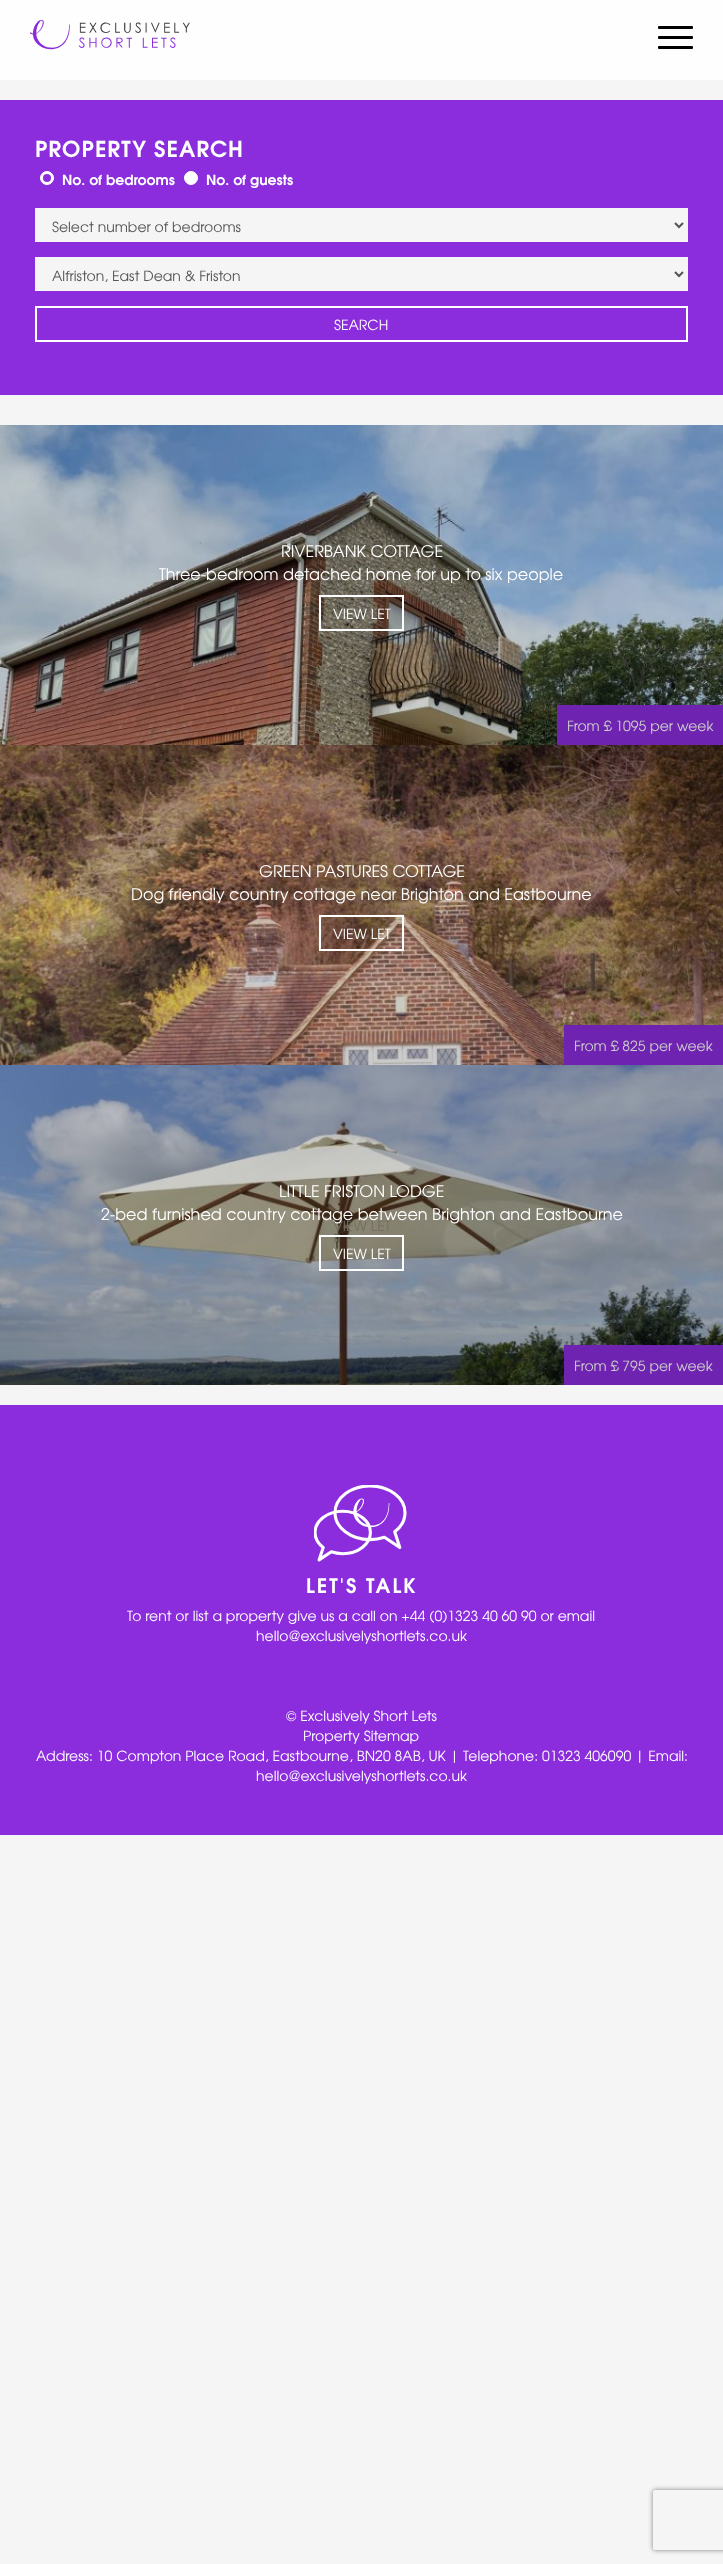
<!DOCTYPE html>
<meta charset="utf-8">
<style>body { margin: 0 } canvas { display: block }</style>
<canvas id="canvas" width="723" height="2564"></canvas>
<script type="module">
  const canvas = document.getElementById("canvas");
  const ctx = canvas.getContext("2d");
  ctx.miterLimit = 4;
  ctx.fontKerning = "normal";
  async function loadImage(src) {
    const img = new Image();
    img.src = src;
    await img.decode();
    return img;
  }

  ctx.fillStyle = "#f5f5f5";
  ctx.fillRect(0, 0, 723, 2564);
  ctx.fillStyle = "#fefefe";
  ctx.fillRect(0, 0, 723, 80);
  ctx.drawImage(await loadImage("img1.png"), 30, 20, 160, 30);
  ctx.fillStyle = "#000000";
  ctx.beginPath();
  ctx.roundRect(658, 36, 35, 3, 1);
  ctx.fill();
  ctx.beginPath();
  ctx.roundRect(658, 26, 35, 3, 1);
  ctx.fill();
  ctx.beginPath();
  ctx.roundRect(658, 46, 35, 3, 1);
  ctx.fill();
  ctx.fillStyle = "#8b2ddd";
  ctx.fillRect(0, 100, 723, 295);
  ctx.letterSpacing = "1px";
  ctx.font = "bold 22px TeX Gyre Adventor";
  ctx.fillStyle = "#ffffff";
  ctx.fillText("PROPERTY SEARCH", 35, 157);
  ctx.beginPath();
  ctx.arc(47, 178, 6.5, 0, Math.PI * 2);
  ctx.fill();
  ctx.strokeStyle = "#ffffff";
  ctx.stroke();
  ctx.fillStyle = "#8b2ddd";
  ctx.beginPath();
  ctx.arc(47, 178, 4, 0, Math.PI * 2);
  ctx.fill();
  ctx.letterSpacing = "0px";
  ctx.font = "bold 14px TeX Gyre Adventor";
  ctx.fillStyle = "#ffffff";
  ctx.fillText("No. of bedrooms", 62, 185);
  ctx.beginPath();
  ctx.arc(191, 178, 6.5, 0, Math.PI * 2);
  ctx.fill();
  ctx.stroke();
  ctx.fillText("No. of guests", 206, 185);
  ctx.fillStyle = "#f5f5f5";
  ctx.fillRect(35, 208, 653, 34);
  ctx.beginPath();
  ctx.moveTo(675, 223);
  ctx.lineTo(679, 227);
  ctx.lineTo(683, 223);
  ctx.strokeStyle = "#555555";
  ctx.lineWidth = 2;
  ctx.stroke();
  ctx.font = "14px TeX Gyre Adventor";
  ctx.fillStyle = "#555555";
  ctx.fillText("Select number of bedrooms", 52, 232);
  ctx.fillStyle = "#f5f5f5";
  ctx.fillRect(35, 257, 653, 34);
  ctx.beginPath();
  ctx.moveTo(675, 272);
  ctx.lineTo(679, 276);
  ctx.lineTo(683, 272);
  ctx.stroke();
  ctx.fillStyle = "#555555";
  ctx.fillText("Alfriston, East Dean & Friston", 52, 281);
  ctx.strokeStyle = "#ffffff";
  ctx.strokeRect(36, 307, 651, 34);
  ctx.fillStyle = "#ffffff";
  ctx.fillText("SEARCH", 334, 330);
  ctx.drawImage(await loadImage("img2.png"), 0, 425, 723, 320);
  ctx.font = "16px TeX Gyre Adventor";
  ctx.fillText("RIVERBANK COTTAGE", 281, 557);
  ctx.fillText("Three-bedroom detached home for up to six people", 159, 580);
  ctx.strokeRect(320, 596, 83, 34);
  ctx.font = "14px TeX Gyre Adventor";
  ctx.fillText("VIEW LET", 333, 619);
  ctx.fillStyle = "#6f24b1";
  ctx.fillRect(557, 705, 166, 40);
  ctx.fillStyle = "#cccccc";
  ctx.fillText("From £ 1095 per week", 567, 731);
  ctx.drawImage(await loadImage("img3.png"), 0, 745, 723, 320);
  ctx.font = "16px TeX Gyre Adventor";
  ctx.fillStyle = "#ffffff";
  ctx.fillText("GREEN PASTURES COTTAGE", 259, 877);
  ctx.fillText("Dog friendly country cottage near Brighton and Eastbourne", 131, 900);
  ctx.strokeRect(320, 916, 83, 34);
  ctx.font = "14px TeX Gyre Adventor";
  ctx.fillText("VIEW LET", 333, 939);
  ctx.fillStyle = "#6f24b1";
  ctx.fillRect(564, 1025, 159, 40);
  ctx.fillStyle = "#cccccc";
  ctx.fillText("From £ 825 per week", 574, 1051);
  ctx.drawImage(await loadImage("img4.png"), 0, 1065, 723, 320);
  ctx.font = "16px TeX Gyre Adventor";
  ctx.fillStyle = "#ffffff";
  ctx.fillText("LITTLE FRISTON LODGE", 279, 1197);
  ctx.fillText("2-bed furnished country cottage between Brighton and Eastbourne", 101, 1220);
  ctx.strokeRect(320, 1236, 83, 34);
  ctx.font = "14px TeX Gyre Adventor";
  ctx.fillText("VIEW LET", 333, 1259);
  ctx.fillStyle = "#6f24b1";
  ctx.fillRect(564, 1345, 159, 40);
  ctx.fillStyle = "#cccccc";
  ctx.fillText("From £ 795 per week", 574, 1371);
  ctx.fillStyle = "#766f5f";
  ctx.fillText("VIEW LET", 333, 1231);
  ctx.fillStyle = "#8b2ddd";
  ctx.fillRect(0, 1405, 723, 430);
  ctx.drawImage(await loadImage("img5.png"), 314, 1485, 93, 77);
  ctx.letterSpacing = "2px";
  ctx.font = "bold 20px TeX Gyre Adventor";
  ctx.fillStyle = "#ffffff";
  ctx.fillText("LET'S TALK", 306, 1593);
  ctx.letterSpacing = "0px";
  ctx.font = "14px TeX Gyre Adventor";
  ctx.fillText("To rent or list a property give us a call on +44 (0)1323 40 60 90 or email", 127, 1621);
  ctx.fillText("hello@exclusivelyshortlets.co.uk", 256, 1641);
  ctx.fillText("© Exclusively Short Lets", 286, 1721);
  ctx.fillText("Property Sitemap", 303, 1741);
  ctx.fillText("Address: 10 Compton Place Road, Eastbourne, BN20 8AB, UK | Telephone: 01323 406090 | Email:", 36, 1761);
  ctx.fillText("hello@exclusivelyshortlets.co.uk", 256, 1781);
  ctx.save();
  ctx.beginPath();
  ctx.moveTo(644, 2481);
  ctx.lineTo(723, 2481);
  ctx.lineTo(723, 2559);
  ctx.lineTo(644, 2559);
  ctx.closePath();
  ctx.moveTo(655, 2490);
  ctx.lineTo(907, 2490);
  ctx.bezierCurveTo(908, 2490, 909, 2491, 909, 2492);
  ctx.lineTo(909, 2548);
  ctx.bezierCurveTo(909, 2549, 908, 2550, 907, 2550);
  ctx.lineTo(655, 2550);
  ctx.bezierCurveTo(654, 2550, 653, 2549, 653, 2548);
  ctx.lineTo(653, 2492);
  ctx.bezierCurveTo(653, 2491, 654, 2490, 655, 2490);
  ctx.closePath();
  ctx.clip("evenodd");
  ctx.fillStyle = "#808080";
  ctx.filter = "blur(2.5px)";
  ctx.beginPath();
  ctx.roundRect(653, 2490, 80, 60, 2);
  ctx.fill();
  ctx.filter = "none";
  ctx.restore();
</script>
